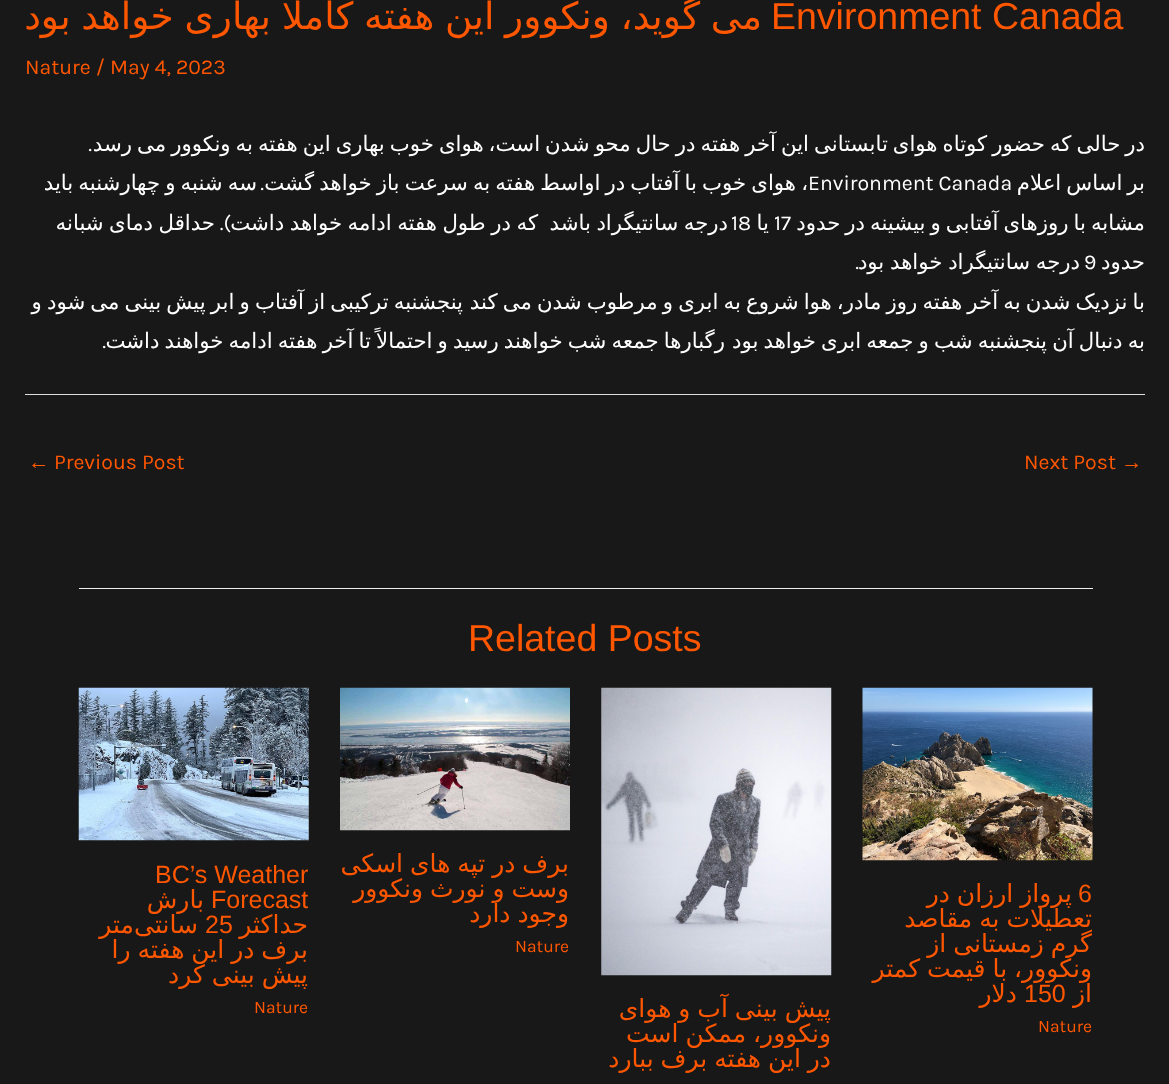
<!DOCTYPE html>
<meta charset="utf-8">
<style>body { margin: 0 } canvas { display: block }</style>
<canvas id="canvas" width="1169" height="1084"></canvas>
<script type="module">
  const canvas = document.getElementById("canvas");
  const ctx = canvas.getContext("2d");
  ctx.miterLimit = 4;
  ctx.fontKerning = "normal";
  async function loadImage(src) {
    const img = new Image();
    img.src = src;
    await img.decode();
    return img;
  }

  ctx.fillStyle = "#191818";
  ctx.fillRect(0, 0, 1169, 1084);
  ctx.font = "37.5px Liberation Sans";
  ctx.fillStyle = "#ff5600";
  ctx.fillText("Environment Canada", 771, 29);
  ctx.wordSpacing = "-1.25px";
  ctx.direction = "rtl";
  ctx.font = "37.5px DejaVu Sans";
  ctx.fillText("می گوید، ونکوور این هفته کاملا بهاری خواهد بود", 762, 29);
  ctx.wordSpacing = "0px";
  ctx.direction = "ltr";
  ctx.font = "21.25px Karla";
  ctx.fillText("Nature / May 4, 2023", 25, 74);
  ctx.wordSpacing = "-1.75px";
  ctx.direction = "rtl";
  ctx.font = "21.25px DejaVu Sans";
  ctx.fillStyle = "#ffffff";
  ctx.fillText("در حالی که حضور کوتاه هوای تابستانی این آخر هفته در حال محو شدن است، هوای خوب بهاری این هفته به ونکوور می رسد", 1145, 151);
  ctx.wordSpacing = "0px";
  ctx.font = "21.25px Karla";
  ctx.fillText(".", 92, 151);
  ctx.wordSpacing = "-1.75px";
  ctx.font = "21.25px DejaVu Sans";
  ctx.fillText("بر اساس اعلام", 1145, 190);
  ctx.wordSpacing = "-1.6px";
  ctx.fillText("، هوای خوب با آفتاب در اواسط هفته به سرعت باز خواهد گشت", 808, 190);
  ctx.wordSpacing = "0px";
  ctx.direction = "ltr";
  ctx.font = "21.25px Karla";
  ctx.fillText("Environment Canada", 808, 190);
  ctx.wordSpacing = "-1.6px";
  ctx.direction = "rtl";
  ctx.font = "21.25px DejaVu Sans";
  ctx.fillText("سه شنبه و چهارشنبه باید", 257, 190);
  ctx.wordSpacing = "0px";
  ctx.font = "21.25px Karla";
  ctx.fillText(".", 264, 190);
  ctx.wordSpacing = "-1.75px";
  ctx.font = "21.25px DejaVu Sans";
  ctx.fillText("مشابه با روزهای آفتابی و بیشینه در حدود", 1145, 230);
  ctx.wordSpacing = "0px";
  ctx.direction = "ltr";
  ctx.font = "21.25px Karla";
  ctx.fillText("17", 774, 230);
  ctx.direction = "rtl";
  ctx.font = "21.25px DejaVu Sans";
  ctx.fillText("یا", 769, 230);
  ctx.direction = "ltr";
  ctx.font = "21.25px Karla";
  ctx.fillText("18", 731, 230);
  ctx.wordSpacing = "-1.25px";
  ctx.direction = "rtl";
  ctx.font = "21.25px DejaVu Sans";
  ctx.fillText("درجه سانتیگراد باشد", 728, 230);
  ctx.fillText("که در طول هفته ادامه خواهد داشت", 538, 230);
  ctx.wordSpacing = "0px";
  ctx.font = "21.25px Karla";
  ctx.fillText(").", 231, 230);
  ctx.wordSpacing = "-1.25px";
  ctx.font = "21.25px DejaVu Sans";
  ctx.fillText("حداقل دمای شبانه", 215, 230);
  ctx.wordSpacing = "0px";
  ctx.fillText("حدود", 1145, 269);
  ctx.direction = "ltr";
  ctx.font = "21.25px Karla";
  ctx.fillText("9", 1084, 269);
  ctx.wordSpacing = "-1px";
  ctx.direction = "rtl";
  ctx.font = "21.25px DejaVu Sans";
  ctx.fillText("درجه سانتیگراد خواهد بود", 1080, 269);
  ctx.wordSpacing = "0px";
  ctx.font = "21.25px Karla";
  ctx.fillText(".", 859, 269);
  ctx.wordSpacing = "-1.6px";
  ctx.font = "21.25px DejaVu Sans";
  ctx.fillText("پنجشنبه ترکیبی از آفتاب و ابر پیش بینی می شود و", 463, 309);
  ctx.fillText("با نزدیک شدن به آخر هفته روز مادر، هوا شروع به ابری و مرطوب شدن می کند", 1145, 309);
  ctx.fillText("رگبارها جمعه شب خواهند رسید و احتمالاً تا آخر هفته ادامه خواهند داشت", 725, 348);
  ctx.fillText("به دنبال آن پنجشنبه شب و جمعه ابری خواهد بود", 1145, 348);
  ctx.wordSpacing = "0px";
  ctx.font = "21.25px Karla";
  ctx.fillText(".", 106, 348);
  ctx.fillStyle = "#dddddd";
  ctx.fillRect(25, 394, 1120, 1);
  ctx.direction = "ltr";
  ctx.font = "21.25px Liberation Sans";
  ctx.fillStyle = "#ff5600";
  ctx.fillText("→", 1121, 469);
  ctx.font = "21.25px Karla";
  ctx.fillText("Next Post", 1024, 469);
  ctx.fillText("Previous Post", 54, 469);
  ctx.font = "21.25px Liberation Sans";
  ctx.fillText("←", 28, 469);
  ctx.fillStyle = "#eeeeee";
  ctx.fillRect(79, 588, 1014, 1);
  ctx.font = "37.5px Liberation Sans";
  ctx.fillStyle = "#ff5600";
  ctx.fillText("Related Posts", 468, 651);
  ctx.drawImage(await loadImage("img1.png"), 862, 687, 231, 174);
  ctx.font = "25px Liberation Sans";
  ctx.fillText("6", 1078, 902);
  ctx.wordSpacing = "-1px";
  ctx.direction = "rtl";
  ctx.font = "25px DejaVu Sans";
  ctx.fillText("پرواز ارزان در", 1072, 902);
  ctx.fillText("تعطیلات به مقاصد", 1092, 927);
  ctx.fillText("گرم زمستانی از", 1092, 952);
  ctx.fillText("ونکوور، با قیمت کمتر", 1092, 977);
  ctx.wordSpacing = "0px";
  ctx.fillText("از", 1092, 1002);
  ctx.direction = "ltr";
  ctx.font = "25px Liberation Sans";
  ctx.fillText("150", 1024, 1002);
  ctx.direction = "rtl";
  ctx.font = "25px DejaVu Sans";
  ctx.fillText("دلار", 1017, 1002);
  ctx.direction = "ltr";
  ctx.font = "17.5px Karla";
  ctx.fillText("Nature", 1038, 1032);
  ctx.drawImage(await loadImage("img2.png"), 601, 687, 231, 289);
  ctx.wordSpacing = "-1px";
  ctx.direction = "rtl";
  ctx.font = "25px DejaVu Sans";
  ctx.fillText("پیش بینی آب و هوای", 831, 1017);
  ctx.fillText("ونکوور، ممکن است", 831, 1042);
  ctx.fillText("در این هفته برف ببارد", 831, 1067);
  ctx.drawImage(await loadImage("img3.png"), 340, 687, 230, 144);
  ctx.fillText("برف در تپه های اسکی", 569, 872);
  ctx.fillText("وست و نورث ونکوور", 569, 897);
  ctx.fillText("وجود دارد", 569, 922);
  ctx.wordSpacing = "0px";
  ctx.direction = "ltr";
  ctx.font = "17.5px Karla";
  ctx.fillText("Nature", 515, 952);
  ctx.drawImage(await loadImage("img4.png"), 78, 687, 231, 154);
  ctx.font = "25px Liberation Sans";
  ctx.fillText("BC’s Weather", 155, 883);
  ctx.fillText("Forecast", 211, 908);
  ctx.direction = "rtl";
  ctx.font = "25px DejaVu Sans";
  ctx.fillText("بارش", 204, 908);
  ctx.fillText("حداکثر", 308, 933);
  ctx.direction = "ltr";
  ctx.font = "25px Liberation Sans";
  ctx.fillText("25", 205, 933);
  ctx.direction = "rtl";
  ctx.font = "25px DejaVu Sans";
  ctx.fillText("سانتی", 198, 933);
  ctx.fillText("متر", 134, 933);
  ctx.wordSpacing = "-1px";
  ctx.fillText("برف در این هفته را", 308, 958);
  ctx.fillText("پیش بینی کرد", 308, 983);
  ctx.wordSpacing = "0px";
  ctx.direction = "ltr";
  ctx.font = "17.5px Karla";
  ctx.fillText("Nature", 254, 1013);
</script>
